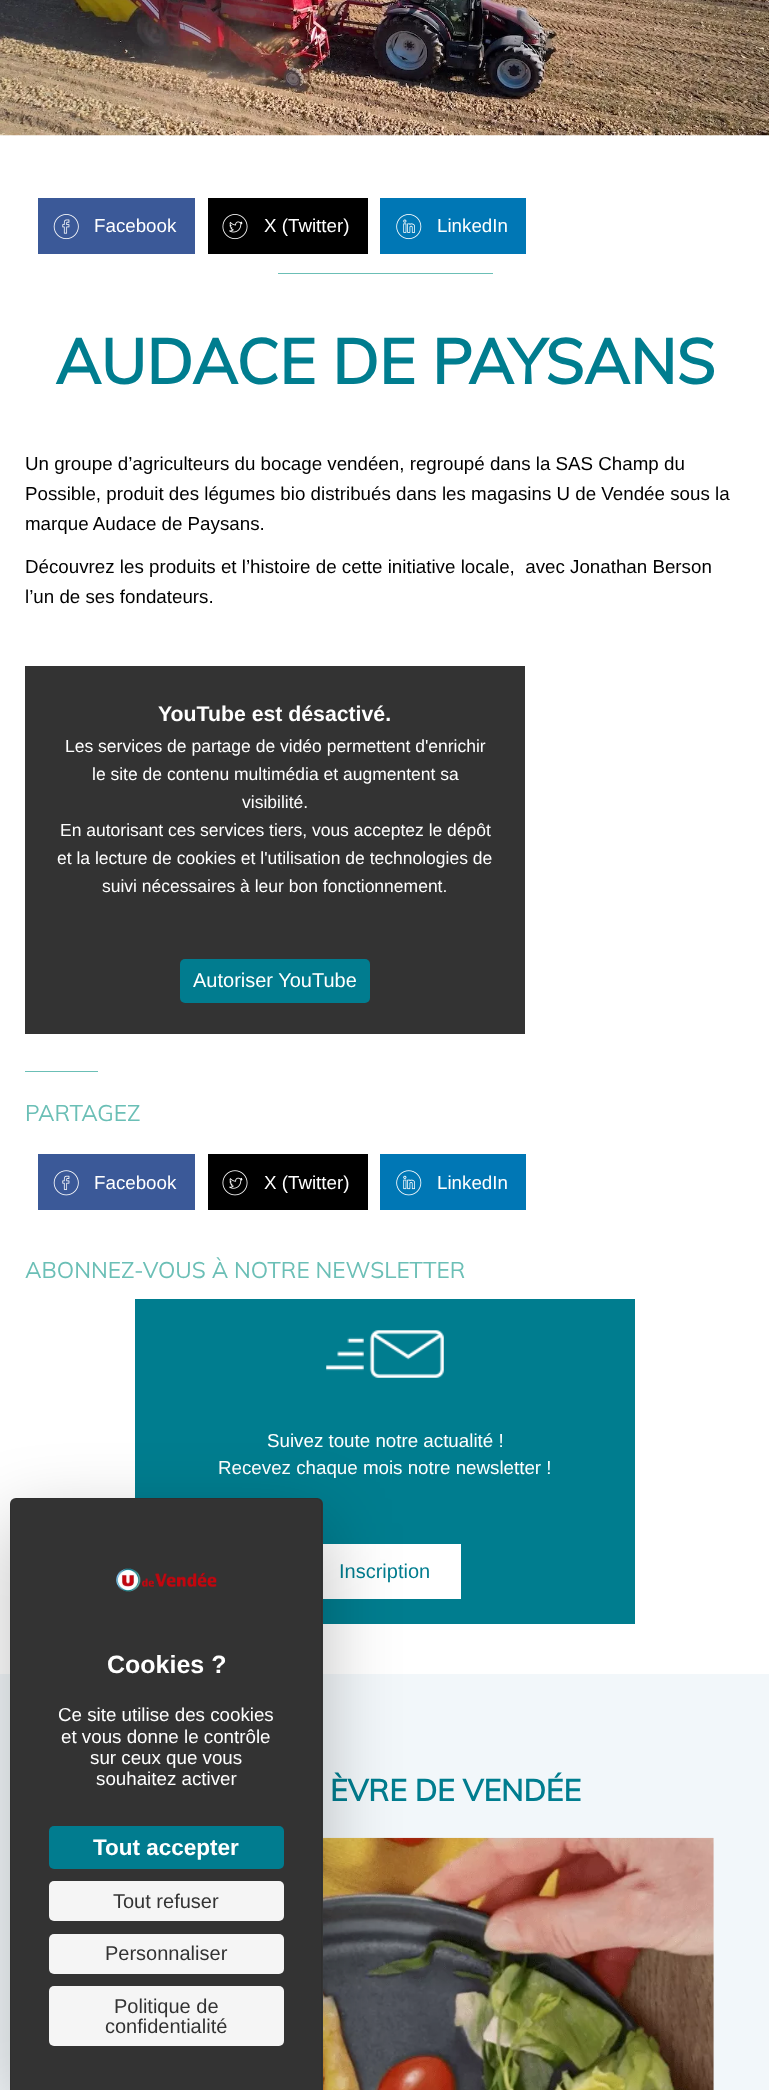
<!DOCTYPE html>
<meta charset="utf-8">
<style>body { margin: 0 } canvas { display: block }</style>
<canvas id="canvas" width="769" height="2090"></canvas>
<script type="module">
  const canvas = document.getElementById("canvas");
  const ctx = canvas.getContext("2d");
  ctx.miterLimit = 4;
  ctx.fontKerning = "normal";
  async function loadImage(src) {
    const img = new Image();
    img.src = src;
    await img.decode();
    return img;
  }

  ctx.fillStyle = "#f2f7fa";
  ctx.fillRect(0, 0, 769, 2090);
  ctx.fillStyle = "#ffffff";
  ctx.fillRect(0, 135, 769, 1539);
  ctx.drawImage(await loadImage("img1.png"), 0, 0, 769, 136);
  ctx.fillStyle = "#3b5998";
  ctx.fillRect(38, 198, 157, 56);
  ctx.drawImage(await loadImage("img2.png"), 53, 214, 26, 26);
  ctx.font = "18.75px Liberation Sans";
  ctx.fillStyle = "#ffffff";
  ctx.fillText("Facebook", 94, 232);
  ctx.fillStyle = "#000000";
  ctx.fillRect(208, 198, 160, 56);
  ctx.drawImage(await loadImage("img3.png"), 222, 214, 26, 26);
  ctx.fillStyle = "#ffffff";
  ctx.fillText("X (Twitter)", 264, 232);
  ctx.fillStyle = "#0077b5";
  ctx.fillRect(380, 198, 146, 56);
  ctx.drawImage(await loadImage("img4.png"), 396, 214, 26, 26);
  ctx.fillStyle = "#ffffff";
  ctx.fillText("LinkedIn", 437, 232);
  ctx.fillStyle = "#6bbfb6";
  ctx.fillRect(278, 273, 215, 1);
  ctx.font = "bold 62.5px Muli";
  ctx.fillStyle = "#007d8f";
  ctx.fillText("AUDACE DE PAYSANS", 55, 384);
  ctx.font = "18.75px Liberation Sans";
  ctx.fillStyle = "#000000";
  ctx.fillText("Un groupe d’agriculteurs du bocage vendéen, regroupé dans la SAS Champ du", 25, 470);
  ctx.fillText("Possible, produit des légumes bio distribués dans les magasins U de Vendée sous la", 25, 500);
  ctx.fillText("marque Audace de Paysans.", 25, 530);
  ctx.fillText("Découvrez les produits et l’histoire de cette initiative locale,  avec Jonathan Berson", 25, 573);
  ctx.fillText("l’un de ses fondateurs.", 25, 603);
  ctx.fillStyle = "#333333";
  ctx.fillRect(25, 666, 500, 368);
  ctx.font = "bold 21.25px Liberation Sans";
  ctx.fillStyle = "#ffffff";
  ctx.fillText("YouTube est désactivé.", 158, 721);
  ctx.font = "17.5px Liberation Sans";
  ctx.fillText("Les services de partage de vidéo permettent d'enrichir", 65, 752);
  ctx.fillText("le site de contenu multimédia et augmentent sa", 92, 780);
  ctx.fillText("visibilité.", 242, 808);
  ctx.fillText("En autorisant ces services tiers, vous acceptez le dépôt", 60, 836);
  ctx.fillText("et la lecture de cookies et l'utilisation de technologies de", 57, 864);
  ctx.fillText("suivi nécessaires à leur bon fonctionnement.", 102, 892);
  ctx.fillStyle = "#017c8f";
  ctx.beginPath();
  ctx.roundRect(180, 959, 190, 44, 5);
  ctx.fill();
  ctx.font = "20px Liberation Sans";
  ctx.fillStyle = "#ffffff";
  ctx.fillText("Autoriser YouTube", 193, 987);
  ctx.fillStyle = "#6bbfb6";
  ctx.fillRect(25, 1071, 73, 1);
  ctx.font = "22.5px Muli";
  ctx.fillText("PARTAGEZ", 25, 1121);
  ctx.fillStyle = "#3b5998";
  ctx.fillRect(38, 1154, 157, 56);
  ctx.drawImage(await loadImage("img5.png"), 53, 1170, 26, 26);
  ctx.font = "18.75px Liberation Sans";
  ctx.fillStyle = "#ffffff";
  ctx.fillText("Facebook", 94, 1189);
  ctx.fillStyle = "#000000";
  ctx.fillRect(208, 1154, 160, 56);
  ctx.drawImage(await loadImage("img6.png"), 222, 1170, 26, 26);
  ctx.fillStyle = "#ffffff";
  ctx.fillText("X (Twitter)", 264, 1189);
  ctx.fillStyle = "#0077b5";
  ctx.fillRect(380, 1154, 146, 56);
  ctx.drawImage(await loadImage("img7.png"), 396, 1170, 26, 26);
  ctx.fillStyle = "#ffffff";
  ctx.fillText("LinkedIn", 437, 1189);
  ctx.font = "22.5px Muli";
  ctx.fillStyle = "#6bbfb6";
  ctx.fillText("ABONNEZ-VOUS À NOTRE NEWSLETTER", 25, 1278);
  ctx.fillStyle = "#007d8f";
  ctx.fillRect(135, 1299, 500, 220);
  ctx.drawImage(await loadImage("img8.png"), 326, 1330, 118, 48);
  ctx.font = "18.75px Liberation Sans";
  ctx.fillStyle = "#ffffff";
  ctx.fillText("Suivez toute notre actualité !", 267, 1447);
  ctx.fillText("Recevez chaque mois notre newsletter !", 218, 1474);
  ctx.fillStyle = "#007d8f";
  ctx.fillRect(323, 1519, 312, 105);
  ctx.fillStyle = "#ffffff";
  ctx.fillRect(323, 1544, 138, 55);
  ctx.font = "20px Liberation Sans";
  ctx.fillStyle = "#007d8f";
  ctx.fillText("Inscription", 339, 1578);
  ctx.font = "bold 30px Muli";
  ctx.fillText("ÈVRE DE VENDÉE", 330, 1801);
  ctx.drawImage(await loadImage("img9.png"), 323, 1837, 391, 253);
  ctx.fillStyle = "rgba(0, 0, 0, 0.25)";
  ctx.filter = "blur(37.5px)";
  ctx.beginPath();
  ctx.roundRect(10, 1523, 313, 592, 6);
  ctx.fill();
  ctx.filter = "none";
  ctx.fillStyle = "#333333";
  ctx.beginPath();
  ctx.roundRect(10, 1498, 313, 592, [6, 6, 0, 0]);
  ctx.fill();
  ctx.fillStyle = "rgba(0, 0, 0, 0.08)";
  ctx.beginPath();
  ctx.moveTo(16, 1498);
  ctx.lineTo(316, 1498);
  ctx.bezierCurveTo(320, 1498, 322, 1500, 322, 1504);
  ctx.lineTo(322, 2090);
  ctx.lineTo(10, 2090);
  ctx.lineTo(10, 1504);
  ctx.bezierCurveTo(10, 1500, 13, 1498, 16, 1498);
  ctx.closePath();
  ctx.moveTo(16, 1499);
  ctx.lineTo(316, 1499);
  ctx.bezierCurveTo(319, 1499, 321, 1501, 321, 1504);
  ctx.lineTo(321, 2090);
  ctx.lineTo(11, 2090);
  ctx.lineTo(11, 1504);
  ctx.bezierCurveTo(11, 1501, 13, 1499, 16, 1499);
  ctx.closePath();
  ctx.fill("evenodd");
  ctx.drawImage(await loadImage("img10.png"), 116, 1568, 101, 24);
  ctx.font = "bold 25px Liberation Sans";
  ctx.fillStyle = "#ffffff";
  ctx.fillText("Cookies ?", 107, 1673);
  ctx.font = "18.75px Liberation Sans";
  ctx.fillText("Ce site utilise des cookies", 58, 1721);
  ctx.fillText("et vous donne le contrôle", 61, 1743);
  ctx.fillText("sur ceux que vous", 90, 1764);
  ctx.fillText("souhaitez activer", 96, 1785);
  ctx.fillStyle = "#017c8f";
  ctx.beginPath();
  ctx.roundRect(49, 1826, 235, 43, 5);
  ctx.fill();
  ctx.font = "bold 22.5px Liberation Sans";
  ctx.fillStyle = "#ffffff";
  ctx.fillText("Tout accepter", 93, 1855);
  ctx.fillStyle = "#f5f5f5";
  ctx.beginPath();
  ctx.roundRect(49, 1881, 235, 40, 5);
  ctx.fill();
  ctx.font = "20px Liberation Sans";
  ctx.fillStyle = "#333333";
  ctx.fillText("Tout refuser", 113, 1908);
  ctx.fillStyle = "#f5f5f5";
  ctx.beginPath();
  ctx.roundRect(49, 1934, 235, 40, 5);
  ctx.fill();
  ctx.fillStyle = "#333333";
  ctx.fillText("Personnaliser", 105, 1960);
  ctx.fillStyle = "#f5f5f5";
  ctx.beginPath();
  ctx.roundRect(49, 1986, 235, 60, 5);
  ctx.fill();
  ctx.fillStyle = "#333333";
  ctx.fillText("Politique de", 114, 2013);
  ctx.fillText("confidentialité", 105, 2033);
</script>
